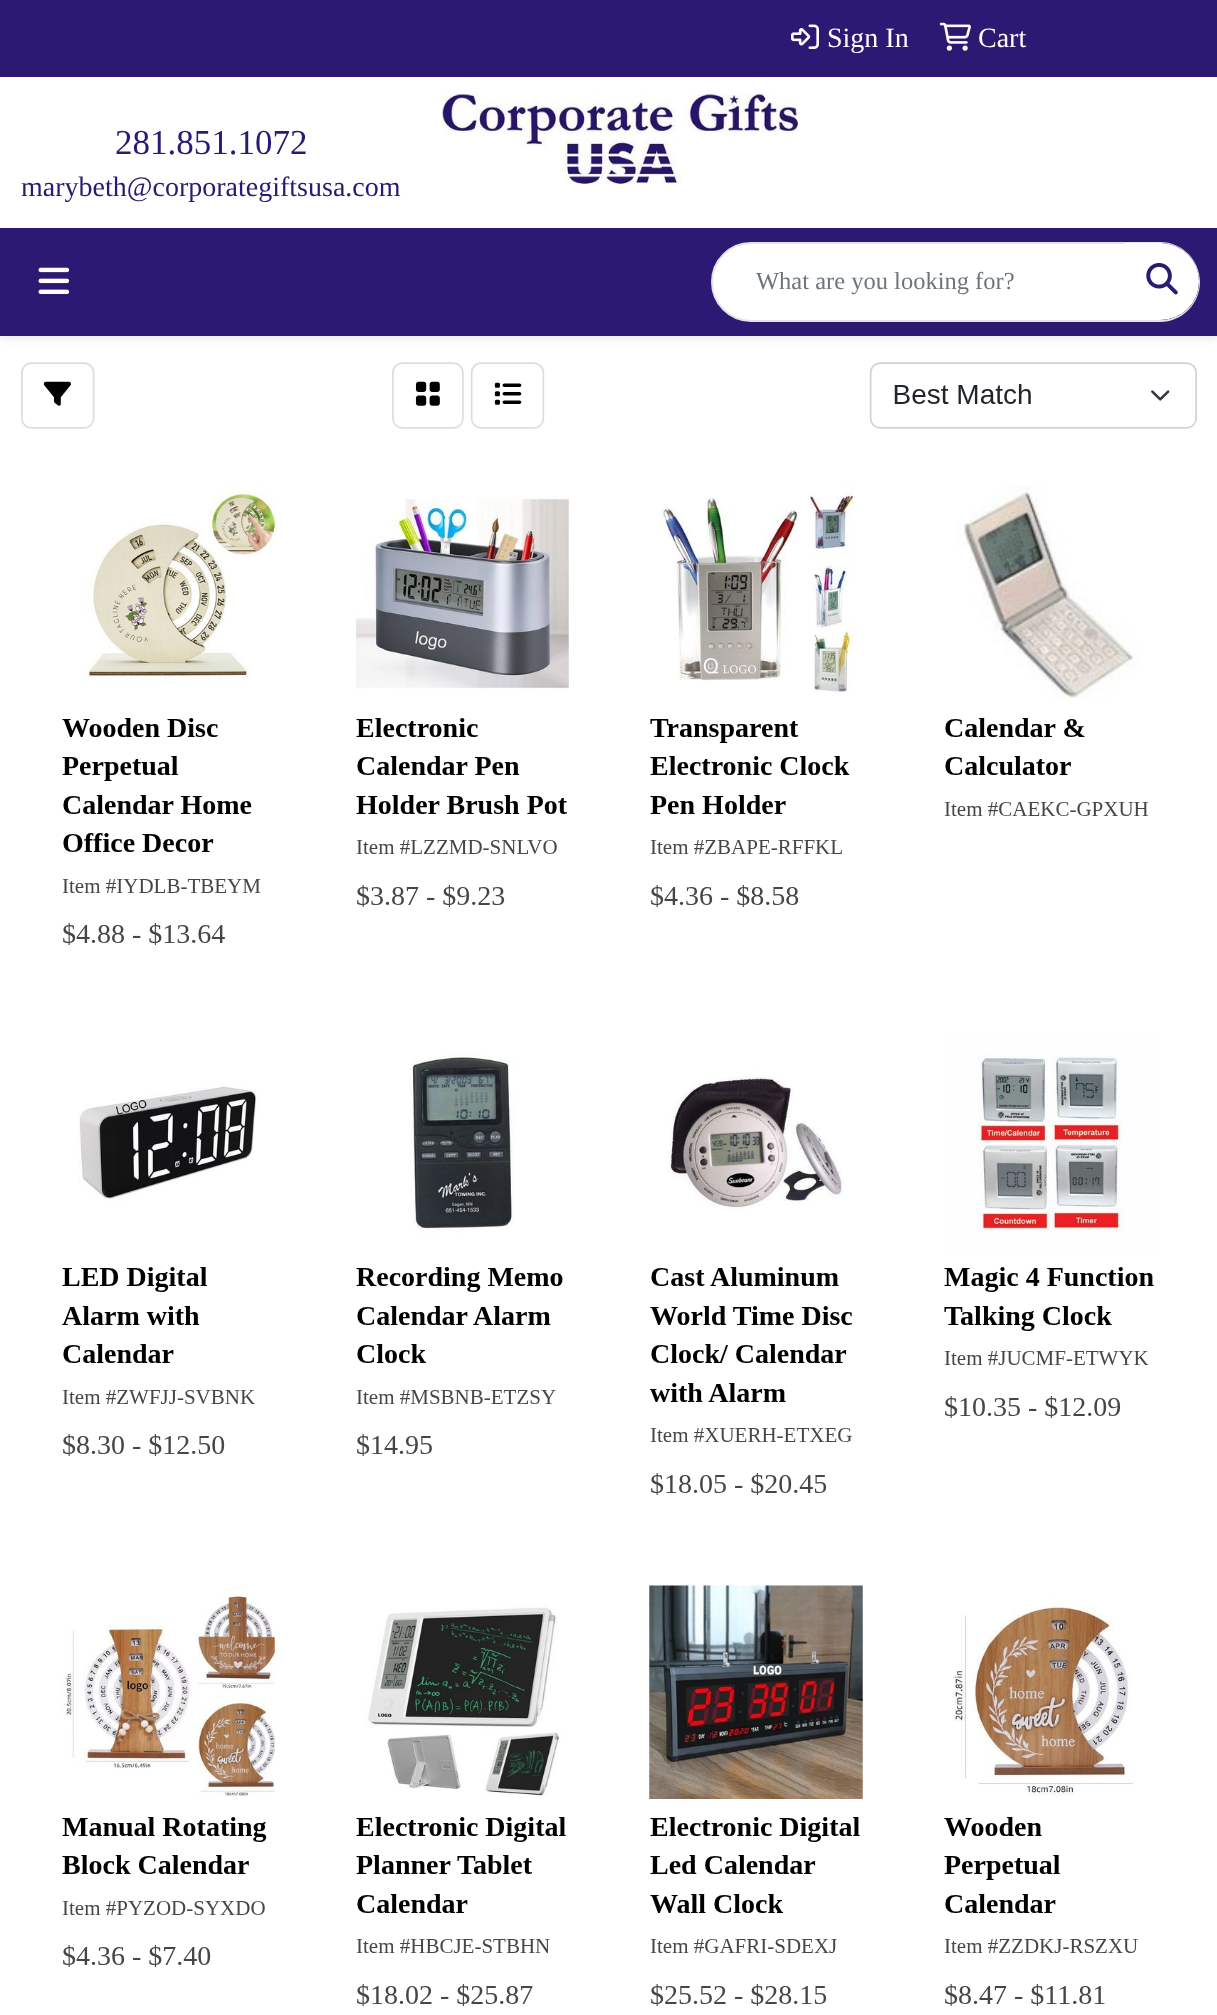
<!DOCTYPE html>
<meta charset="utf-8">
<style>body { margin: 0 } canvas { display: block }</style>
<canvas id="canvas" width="1217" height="2015"></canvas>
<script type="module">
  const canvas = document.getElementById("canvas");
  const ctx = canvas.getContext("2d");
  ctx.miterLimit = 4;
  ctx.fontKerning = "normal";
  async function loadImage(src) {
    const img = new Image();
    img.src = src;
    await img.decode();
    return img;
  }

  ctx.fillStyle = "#ffffff";
  ctx.fillRect(0, 0, 1217, 2015);
  ctx.fillStyle = "#2c1973";
  ctx.fillRect(0, 0, 1217, 77);
  ctx.drawImage(await loadImage("img1.png"), 791, 24, 28, 25);
  ctx.font = "28px Liberation Serif";
  ctx.fillStyle = "#ffffff";
  ctx.fillText("Sign In", 827, 47);
  ctx.drawImage(await loadImage("img2.png"), 939, 22, 32, 29);
  ctx.fillText("Cart", 978, 47);
  ctx.font = "35px Liberation Serif";
  ctx.fillStyle = "#2c1973";
  ctx.fillText("281.851.1072", 115, 154);
  ctx.font = "28px Liberation Serif";
  ctx.fillText("marybeth@corporategiftsusa.com", 21, 196);
  ctx.drawImage(await loadImage("img3.png"), 442, 94, 356, 90);
  ctx.fillStyle = "rgba(0, 0, 0, 0.07)";
  ctx.filter = "blur(3.5px)";
  ctx.beginPath();
  ctx.rect(0, 231, 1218, 109);
  ctx.fill();
  ctx.filter = "none";
  ctx.fillStyle = "#2c1973";
  ctx.fillRect(0, 228, 1217, 108);
  ctx.drawImage(await loadImage("img4.png"), 38, 267, 32, 27);
  ctx.fillStyle = "#ffffff";
  ctx.beginPath();
  ctx.roundRect(712, 243, 414, 78, [39, 0, 0, 39]);
  ctx.fill();
  ctx.strokeStyle = "#e4e4e4";
  ctx.lineWidth = 2;
  ctx.stroke();
  ctx.font = "24.5px Liberation Serif";
  ctx.fillStyle = "#6c757d";
  ctx.fillText("What are you looking for?", 756, 289);
  ctx.fillStyle = "#ffffff";
  ctx.beginPath();
  ctx.roundRect(1125, 243, 74, 77, [0, 38.5, 38.5, 0]);
  ctx.fill();
  ctx.fillStyle = "#e4e4e4";
  ctx.beginPath();
  ctx.moveTo(1125, 242);
  ctx.lineTo(1160, 242);
  ctx.bezierCurveTo(1182, 242, 1200, 260, 1200, 282);
  ctx.bezierCurveTo(1200, 304, 1182, 322, 1160, 322);
  ctx.lineTo(1125, 322);
  ctx.closePath();
  ctx.moveTo(1125, 243);
  ctx.lineTo(1160, 243);
  ctx.bezierCurveTo(1182, 243, 1199, 260, 1199, 282);
  ctx.bezierCurveTo(1199, 303, 1182, 320, 1160, 320);
  ctx.lineTo(1125, 320);
  ctx.closePath();
  ctx.fill("evenodd");
  ctx.drawImage(await loadImage("img5.png"), 1146, 262, 32, 33);
  ctx.drawImage(await loadImage("img6.png"), 21, 362, 1176, 1644);
</script>
